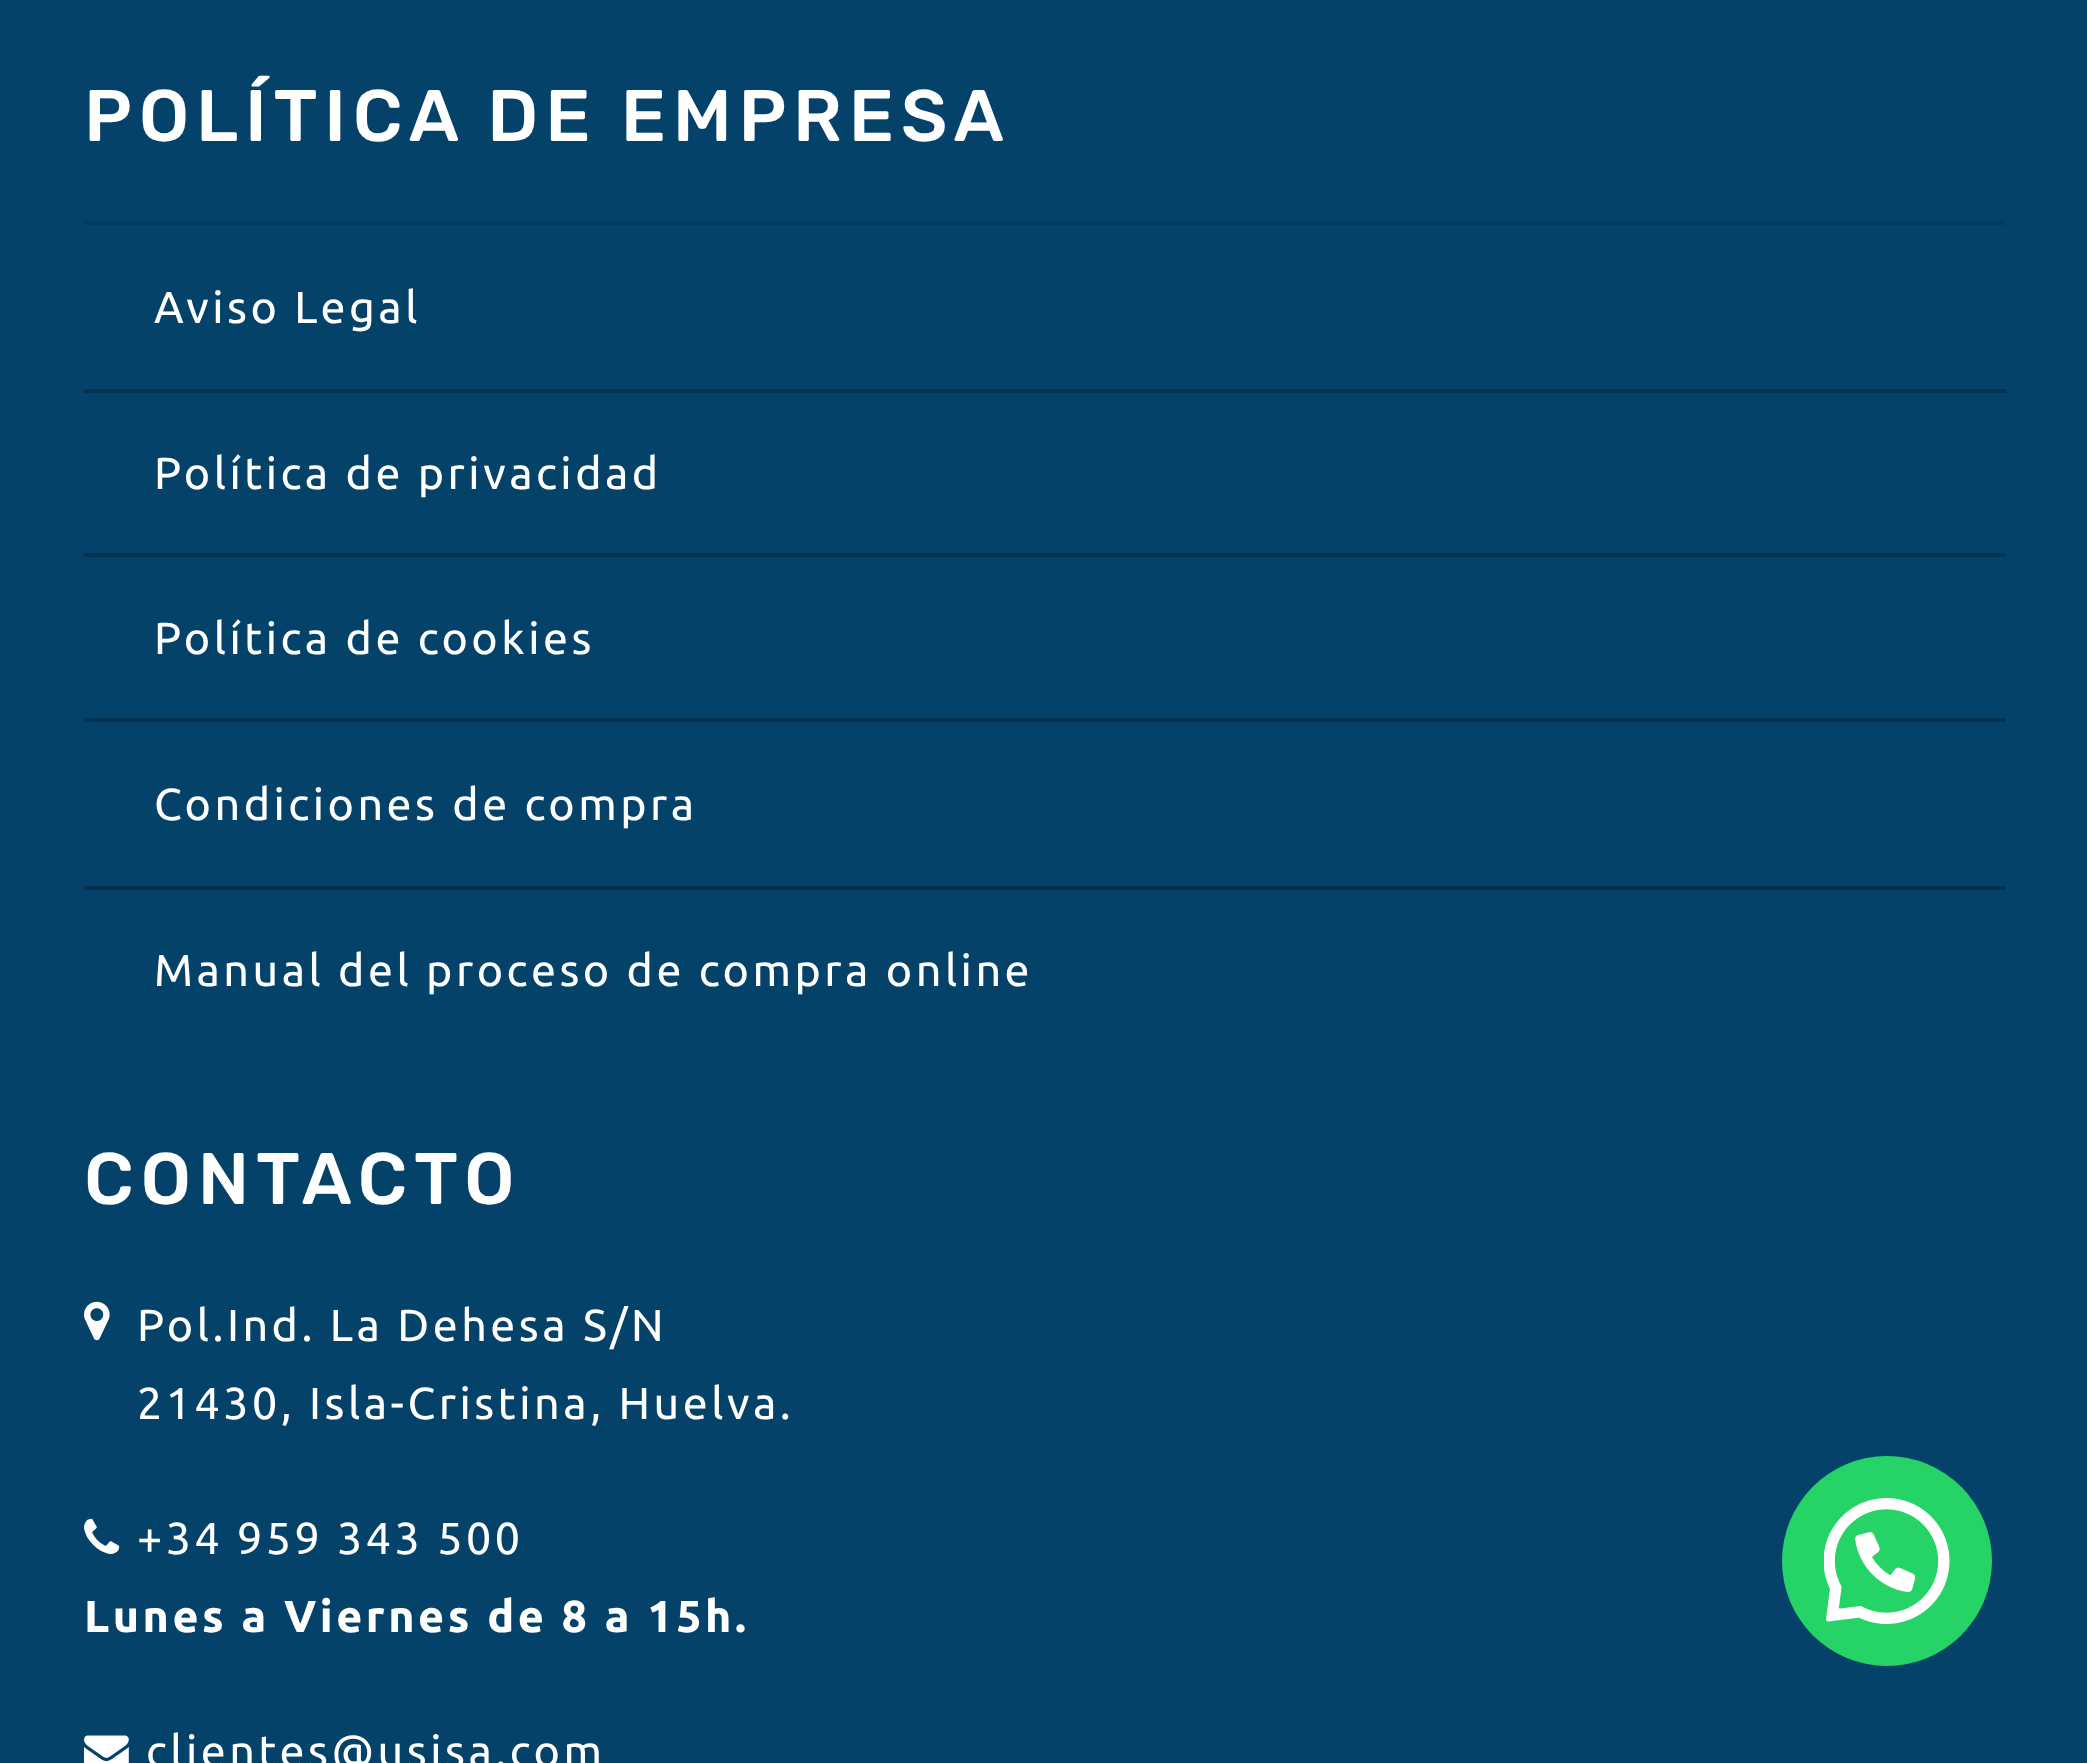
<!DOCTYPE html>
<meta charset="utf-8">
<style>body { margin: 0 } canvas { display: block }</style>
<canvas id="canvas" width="2087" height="1763"></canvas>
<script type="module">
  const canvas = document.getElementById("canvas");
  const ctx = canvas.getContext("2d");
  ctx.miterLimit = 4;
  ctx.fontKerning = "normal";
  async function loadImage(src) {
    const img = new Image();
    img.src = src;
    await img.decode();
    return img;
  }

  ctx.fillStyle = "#04426a";
  ctx.fillRect(0, 0, 2087, 1763);
  ctx.letterSpacing = "6.75px";
  ctx.font = "500 72.75px Rubik";
  ctx.fillStyle = "#ffffff";
  ctx.fillText("POLÍTICA DE EMPRESA", 84, 141);
  ctx.fillStyle = "#043a5d";
  ctx.fillRect(84, 221, 1922, 4);
  ctx.letterSpacing = "3.5px";
  ctx.font = "44.75px Ubuntu";
  ctx.fillStyle = "#ffffff";
  ctx.fillText("Aviso Legal", 154, 323);
  ctx.fillStyle = "#043351";
  ctx.fillRect(84, 389, 1922, 4);
  ctx.fillStyle = "#ffffff";
  ctx.fillText("Política de privacidad", 154, 489);
  ctx.fillStyle = "#043351";
  ctx.fillRect(84, 553, 1922, 4);
  ctx.fillStyle = "#ffffff";
  ctx.fillText("Política de cookies", 154, 654);
  ctx.fillStyle = "#043351";
  ctx.fillRect(84, 718, 1922, 4);
  ctx.fillStyle = "#ffffff";
  ctx.fillText("Condiciones de compra", 154, 820);
  ctx.fillStyle = "#043351";
  ctx.fillRect(84, 886, 1922, 4);
  ctx.fillStyle = "#ffffff";
  ctx.fillText("Manual del proceso de compra online", 154, 986);
  ctx.letterSpacing = "6.75px";
  ctx.font = "500 72.75px Rubik";
  ctx.fillText("CONTACTO", 84, 1204);
  ctx.drawImage(await loadImage("img1.png"), 84, 1301, 26, 40);
  ctx.letterSpacing = "3.5px";
  ctx.font = "44.75px Ubuntu";
  ctx.fillText("Pol.Ind. La Dehesa S/N", 137, 1341);
  ctx.fillText("21430, Isla-Cristina, Huelva.", 137, 1419);
  ctx.drawImage(await loadImage("img2.png"), 84, 1518, 36, 36);
  ctx.fillText("+34 959 343 500", 137, 1554);
  ctx.font = "bold 44.75px Ubuntu";
  ctx.fillText("Lunes a Viernes de 8 a 15h.", 84, 1632);
  ctx.drawImage(await loadImage("img3.png"), 84, 1735, 45, 28);
  ctx.font = "44.75px Ubuntu";
  ctx.fillText("clientes@usisa.com", 146, 1767);
  ctx.fillStyle = "#25d366";
  ctx.beginPath();
  ctx.arc(1887, 1561, 105, 0, Math.PI * 2);
  ctx.fill();
  ctx.drawImage(await loadImage("img4.png"), 1824, 1498, 126, 126);
</script>
